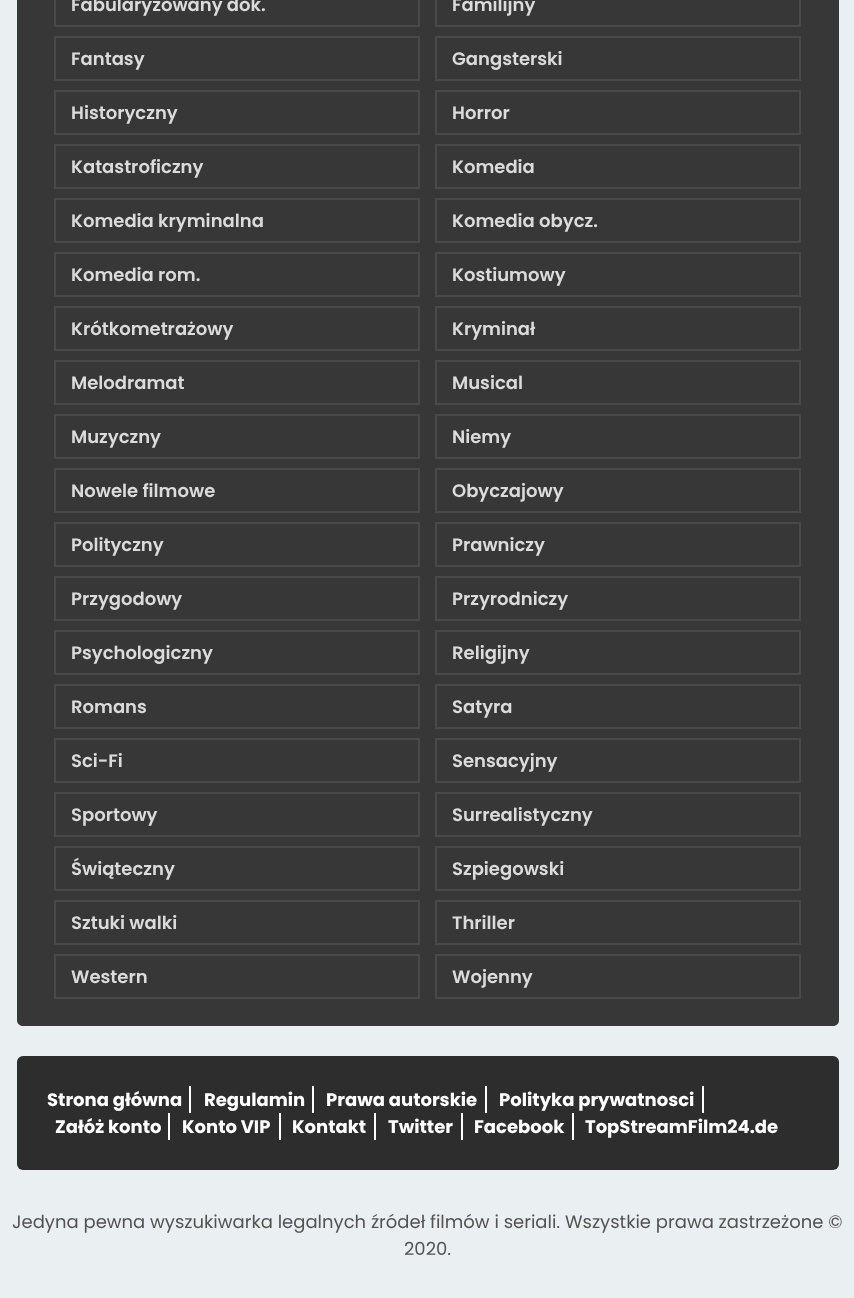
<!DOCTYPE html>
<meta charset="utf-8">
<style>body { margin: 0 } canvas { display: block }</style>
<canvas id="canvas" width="854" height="1298"></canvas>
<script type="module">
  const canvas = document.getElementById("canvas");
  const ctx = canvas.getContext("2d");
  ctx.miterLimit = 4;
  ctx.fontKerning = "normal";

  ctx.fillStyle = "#eaeff1";
  ctx.fillRect(0, 0, 854, 1298);
  ctx.fillStyle = "#373737";
  ctx.beginPath();
  ctx.moveTo(17, -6);
  ctx.lineTo(839, -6);
  ctx.lineTo(839, 1020);
  ctx.bezierCurveTo(839, 1023.5, 836.5, 1026, 833, 1026);
  ctx.lineTo(23, 1026);
  ctx.bezierCurveTo(19.5, 1026, 17, 1023.5, 17, 1020);
  ctx.closePath();
  ctx.fill();
  ctx.strokeStyle = "#494949";
  ctx.lineWidth = 2;
  ctx.strokeRect(55, -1, 364, 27);
  ctx.font = "600 18px Poppins";
  ctx.fillStyle = "#dbdbdb";
  ctx.fillText("Fabularyzowany dok.", 71, 11);
  ctx.strokeRect(436, -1, 364, 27);
  ctx.fillText("Familijny", 452, 11);
  ctx.strokeRect(55, 37, 364, 43);
  ctx.fillText("Fantasy", 71, 65);
  ctx.strokeRect(436, 37, 364, 43);
  ctx.fillText("Gangsterski", 452, 65);
  ctx.strokeRect(55, 91, 364, 43);
  ctx.fillText("Historyczny", 71, 119);
  ctx.strokeRect(436, 91, 364, 43);
  ctx.fillText("Horror", 452, 119);
  ctx.strokeRect(55, 145, 364, 43);
  ctx.fillText("Katastroficzny", 71, 173);
  ctx.strokeRect(436, 145, 364, 43);
  ctx.fillText("Komedia", 452, 173);
  ctx.strokeRect(55, 199, 364, 43);
  ctx.fillText("Komedia kryminalna", 71, 227);
  ctx.strokeRect(436, 199, 364, 43);
  ctx.fillText("Komedia obycz.", 452, 227);
  ctx.strokeRect(55, 253, 364, 43);
  ctx.fillText("Komedia rom.", 71, 281);
  ctx.strokeRect(436, 253, 364, 43);
  ctx.fillText("Kostiumowy", 452, 281);
  ctx.strokeRect(55, 307, 364, 43);
  ctx.fillText("Krótkometrażowy", 71, 335);
  ctx.strokeRect(436, 307, 364, 43);
  ctx.fillText("Kryminał", 452, 335);
  ctx.strokeRect(55, 361, 364, 43);
  ctx.fillText("Melodramat", 71, 389);
  ctx.strokeRect(436, 361, 364, 43);
  ctx.fillText("Musical", 452, 389);
  ctx.strokeRect(55, 415, 364, 43);
  ctx.fillText("Muzyczny", 71, 443);
  ctx.strokeRect(436, 415, 364, 43);
  ctx.fillText("Niemy", 452, 443);
  ctx.strokeRect(55, 469, 364, 43);
  ctx.fillText("Nowele filmowe", 71, 497);
  ctx.strokeRect(436, 469, 364, 43);
  ctx.fillText("Obyczajowy", 452, 497);
  ctx.strokeRect(55, 523, 364, 43);
  ctx.fillText("Polityczny", 71, 551);
  ctx.strokeRect(436, 523, 364, 43);
  ctx.fillText("Prawniczy", 452, 551);
  ctx.strokeRect(55, 577, 364, 43);
  ctx.fillText("Przygodowy", 71, 605);
  ctx.strokeRect(436, 577, 364, 43);
  ctx.fillText("Przyrodniczy", 452, 605);
  ctx.strokeRect(55, 631, 364, 43);
  ctx.fillText("Psychologiczny", 71, 659);
  ctx.strokeRect(436, 631, 364, 43);
  ctx.fillText("Religijny", 452, 659);
  ctx.strokeRect(55, 685, 364, 43);
  ctx.fillText("Romans", 71, 713);
  ctx.strokeRect(436, 685, 364, 43);
  ctx.fillText("Satyra", 452, 713);
  ctx.strokeRect(55, 739, 364, 43);
  ctx.fillText("Sci-Fi", 71, 767);
  ctx.strokeRect(436, 739, 364, 43);
  ctx.fillText("Sensacyjny", 452, 767);
  ctx.strokeRect(55, 793, 364, 43);
  ctx.fillText("Sportowy", 71, 821);
  ctx.strokeRect(436, 793, 364, 43);
  ctx.fillText("Surrealistyczny", 452, 821);
  ctx.strokeRect(55, 847, 364, 43);
  ctx.fillText("Świąteczny", 71, 875);
  ctx.strokeRect(436, 847, 364, 43);
  ctx.fillText("Szpiegowski", 452, 875);
  ctx.strokeRect(55, 901, 364, 43);
  ctx.fillText("Sztuki walki", 71, 929);
  ctx.strokeRect(436, 901, 364, 43);
  ctx.fillText("Thriller", 452, 929);
  ctx.strokeRect(55, 955, 364, 43);
  ctx.fillText("Western", 71, 983);
  ctx.strokeRect(436, 955, 364, 43);
  ctx.fillText("Wojenny", 452, 983);
  ctx.fillStyle = "#2d2d2d";
  ctx.beginPath();
  ctx.roundRect(17, 1056, 822, 114, 6);
  ctx.fill();
  ctx.fillStyle = "#ffffff";
  ctx.fillRect(189, 1086, 2, 27);
  ctx.font = "bold 18px Poppins";
  ctx.fillText("Strona główna", 47, 1106);
  ctx.fillRect(312, 1086, 2, 27);
  ctx.fillText("Regulamin", 204, 1106);
  ctx.fillRect(485, 1086, 2, 27);
  ctx.fillText("Prawa autorskie", 326, 1106);
  ctx.fillRect(702, 1086, 2, 27);
  ctx.fillText("Polityka prywatnosci", 499, 1106);
  ctx.fillRect(168, 1113, 2, 27);
  ctx.fillText("Załóż konto", 55, 1133);
  ctx.fillRect(279, 1113, 2, 27);
  ctx.fillText("Konto VIP", 182, 1133);
  ctx.fillRect(374, 1113, 2, 27);
  ctx.fillText("Kontakt", 292, 1133);
  ctx.fillRect(461, 1113, 2, 27);
  ctx.fillText("Twitter", 388, 1133);
  ctx.fillRect(572, 1113, 2, 27);
  ctx.fillText("Facebook", 474, 1133);
  ctx.fillText("TopStreamFilm24.de", 585, 1133);
  ctx.font = "18px Poppins";
  ctx.fillStyle = "#535353";
  ctx.fillText("Jedyna pewna wyszukiwarka legalnych źródeł filmów i seriali. Wszystkie prawa zastrzeżone ©", 12, 1228);
  ctx.fillText("2020.", 404, 1255);
</script>
